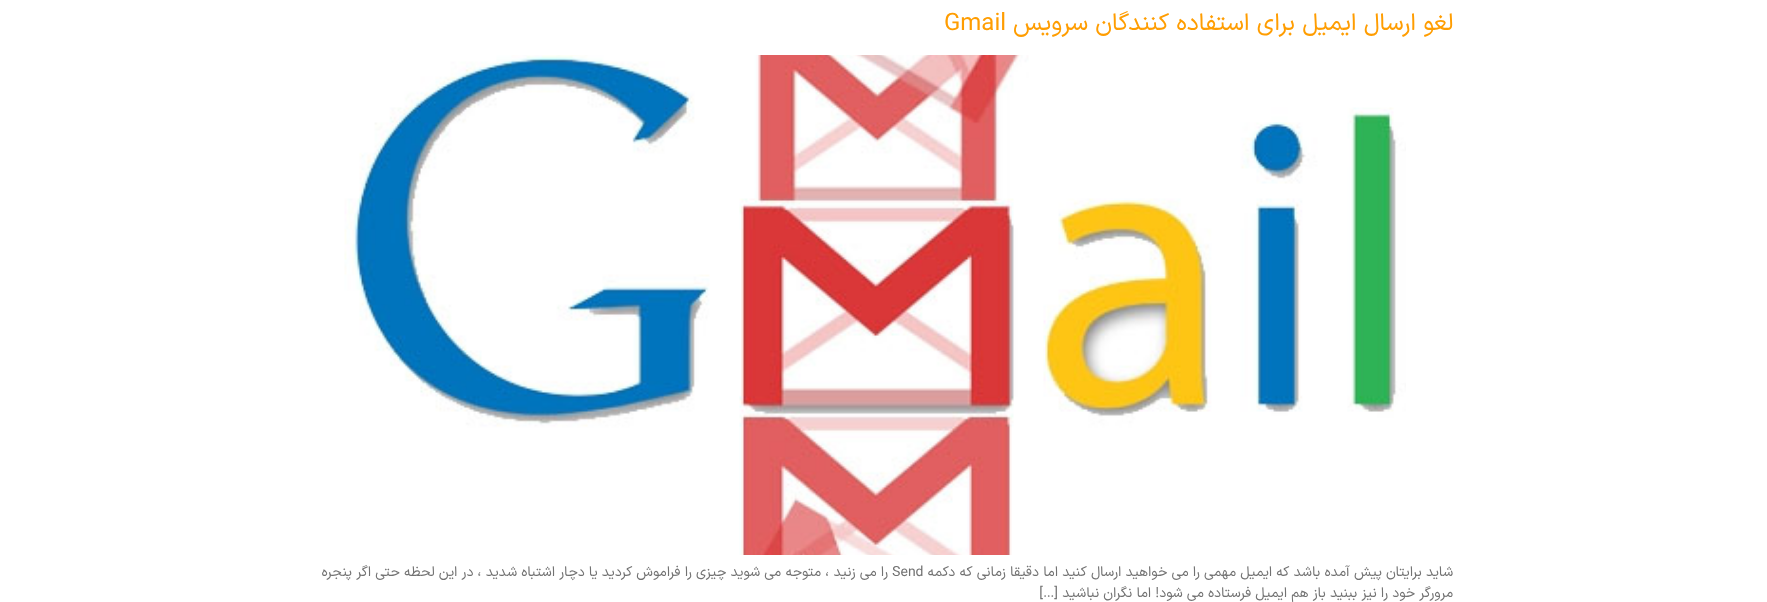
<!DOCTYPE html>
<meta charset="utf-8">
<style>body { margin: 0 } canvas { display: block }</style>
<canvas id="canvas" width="1767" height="602"></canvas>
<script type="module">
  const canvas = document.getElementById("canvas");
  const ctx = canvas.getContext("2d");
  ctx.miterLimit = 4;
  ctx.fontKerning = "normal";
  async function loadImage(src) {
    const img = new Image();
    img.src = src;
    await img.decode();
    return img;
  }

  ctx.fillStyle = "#ffffff";
  ctx.fillRect(0, 0, 1767, 602);
  ctx.direction = "rtl";
  ctx.font = "24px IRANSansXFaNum";
  ctx.fillStyle = "#ff9d01";
  ctx.fillText("لغو ارسال ایمیل برای استفاده کنندگان سرویس", 1453, 30);
  ctx.direction = "ltr";
  ctx.fillText("Gmail", 944, 30);
  ctx.drawImage(await loadImage("img1.png"), 344, 55, 1062, 500);
  ctx.direction = "rtl";
  ctx.font = "14px IRANSansXFaNum";
  ctx.fillStyle = "#727272";
  ctx.fillText("شاید برایتان پیش آمده باشد که ایمیل مهمی را می خواهید ارسال کنید اما دقیقا زمانی که دکمه", 1453, 576);
  ctx.direction = "ltr";
  ctx.fillText("Send", 892, 576);
  ctx.direction = "rtl";
  ctx.fillText("را می زنید ، متوجه می شوید چیزی را فراموش کردید یا دچار اشتباه شدید ، در این لحظه حتی اگر پنجره", 888, 576);
  ctx.fillText("مرورگر خود را نیز ببنید باز هم ایمیل فرستاده می شود! اما نگران نباشید […]", 1453, 597);
</script>
